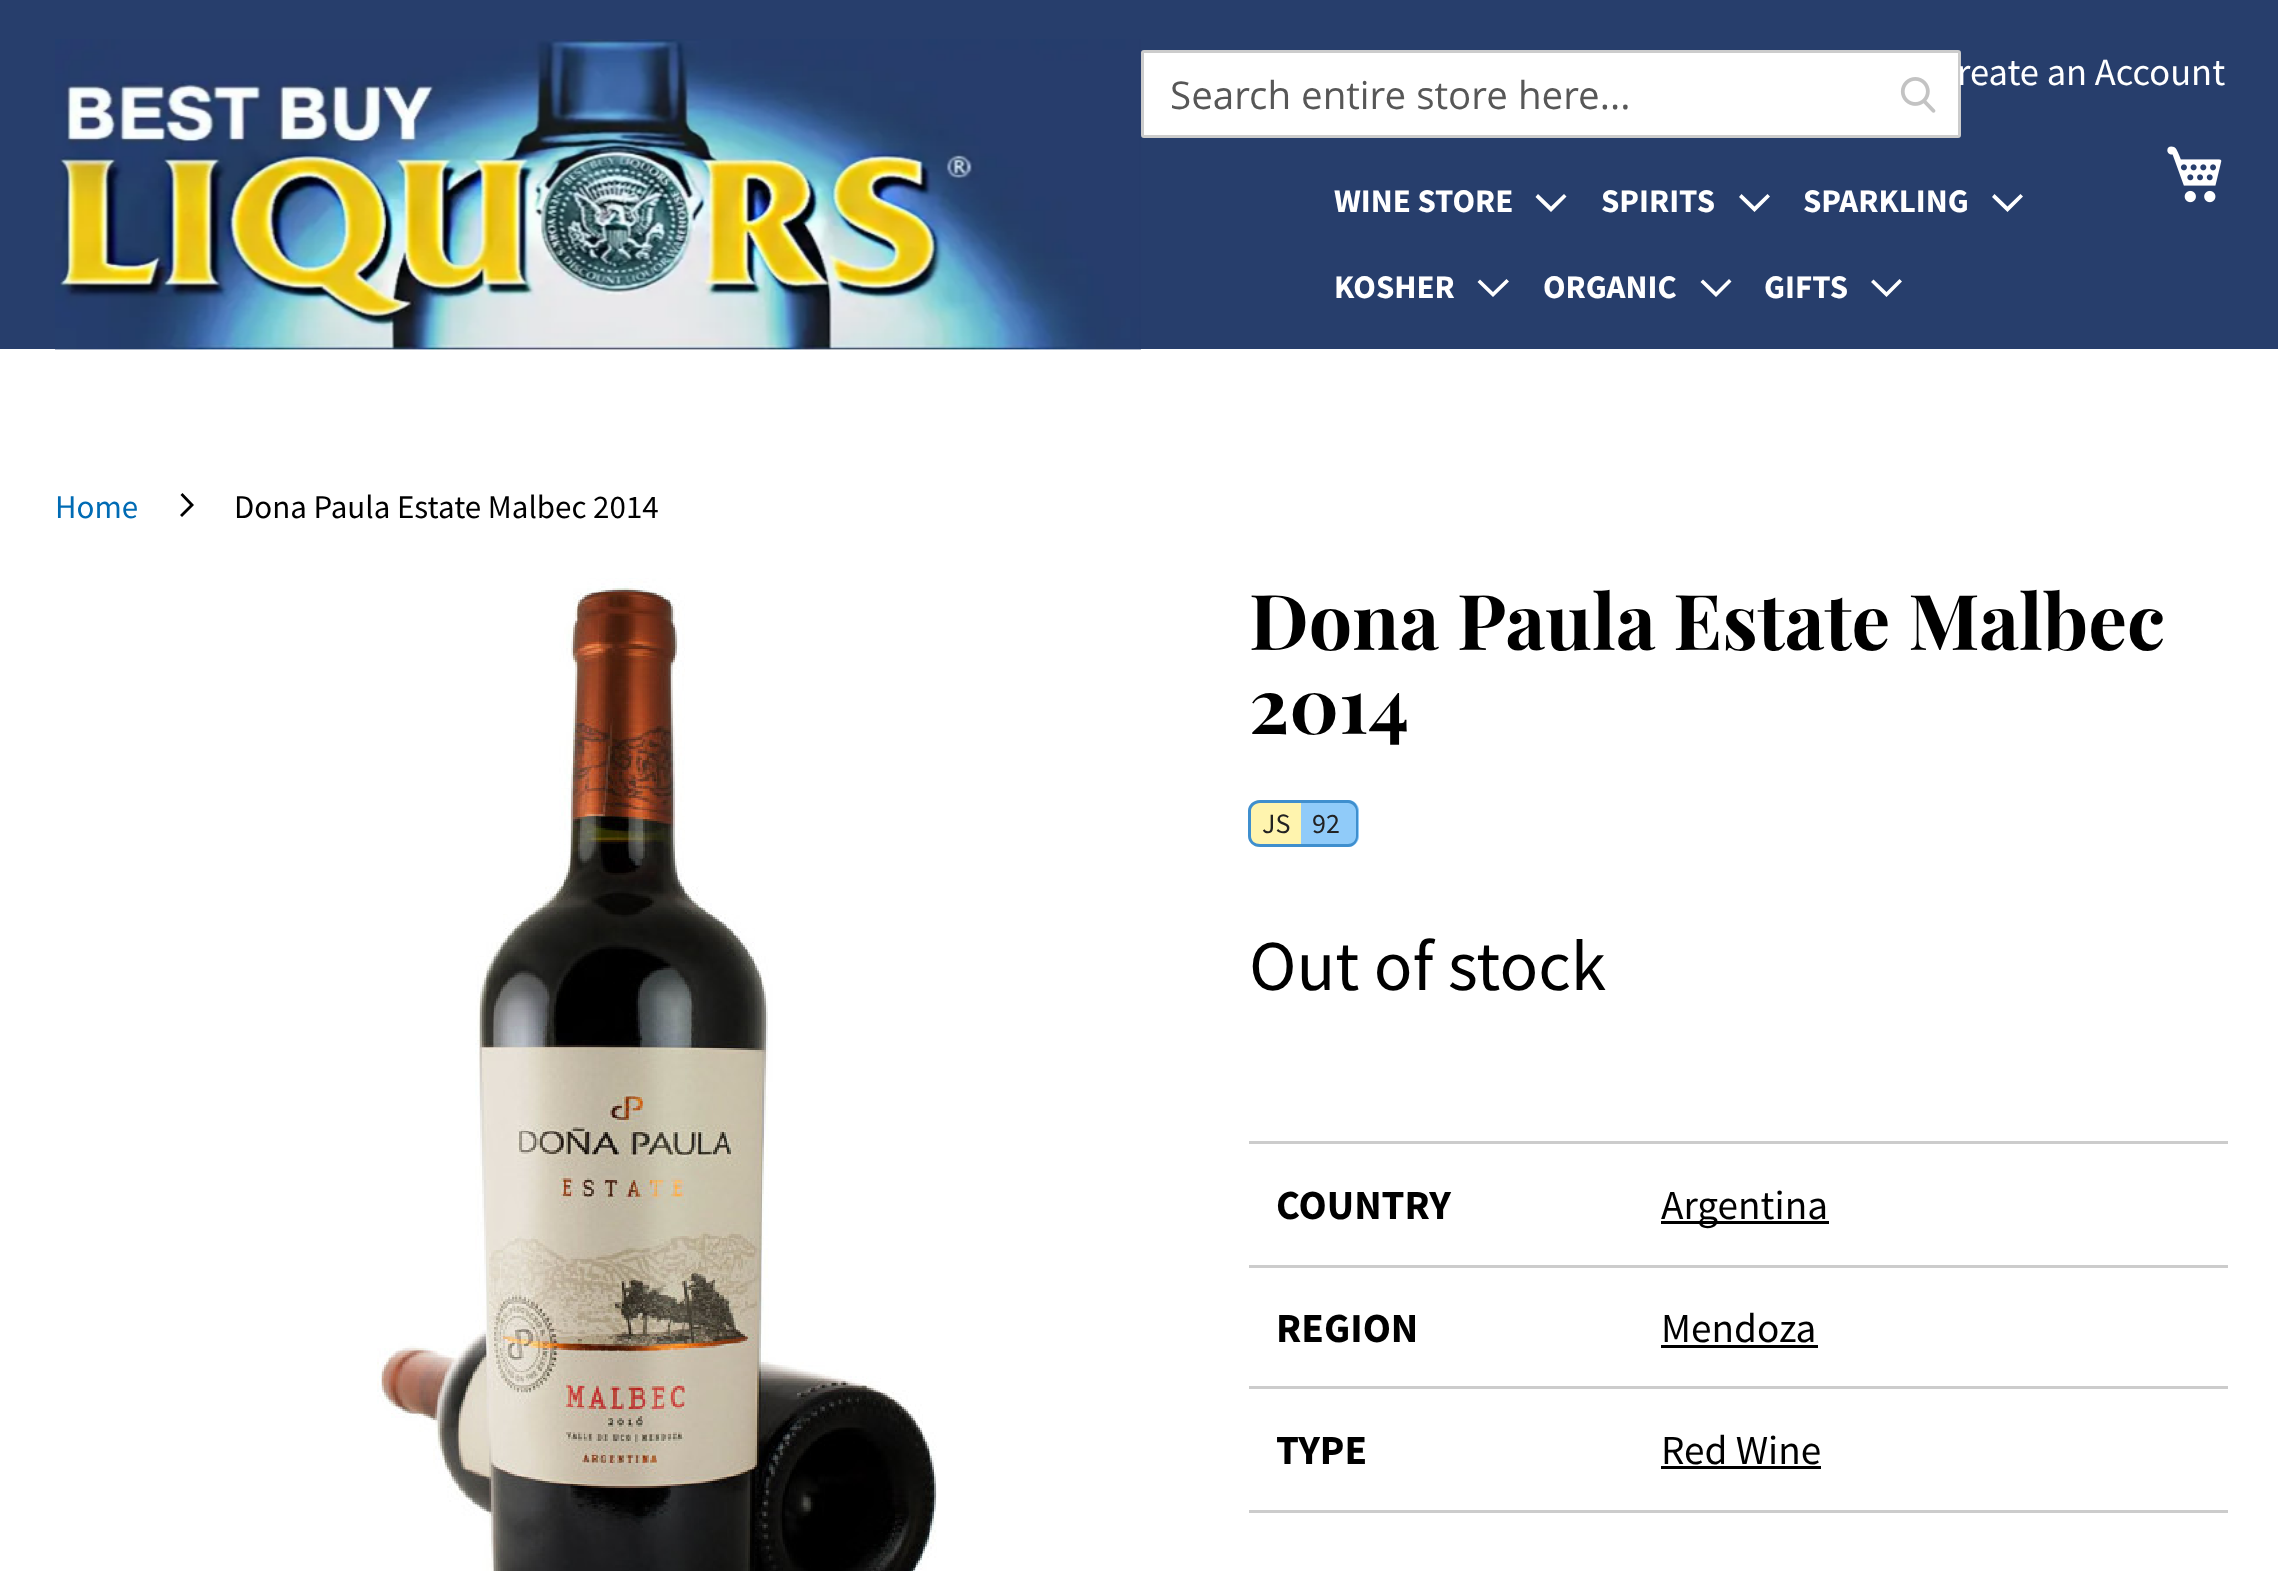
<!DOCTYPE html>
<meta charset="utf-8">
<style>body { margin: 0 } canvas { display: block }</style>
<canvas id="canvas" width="2278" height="1571"></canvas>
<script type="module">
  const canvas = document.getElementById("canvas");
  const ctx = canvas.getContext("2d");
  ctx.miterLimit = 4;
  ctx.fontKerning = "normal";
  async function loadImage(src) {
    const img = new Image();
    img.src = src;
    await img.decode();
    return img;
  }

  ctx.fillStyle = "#ffffff";
  ctx.fillRect(0, 0, 2278, 1571);
  ctx.fillStyle = "#273e6c";
  ctx.fillRect(0, 0, 2278, 349);
  ctx.fillStyle = "#ffffff";
  ctx.beginPath();
  ctx.roundRect(1142.5, 51.5, 817, 85, 1.5);
  ctx.fill();
  ctx.strokeStyle = "#cccccc";
  ctx.lineWidth = 3;
  ctx.stroke();
  ctx.font = "38.5px Source Sans Pro";
  ctx.fillText("reate an Account", 1957, 85);
  ctx.drawImage(await loadImage("img1.png"), 55, 39, 1086, 311);
  ctx.font = "38.5px Open Sans";
  ctx.fillStyle = "#575757";
  ctx.fillText("Search entire store here...", 1170, 109);
  ctx.drawImage(await loadImage("img2.png"), 1900, 77, 36, 36);
  ctx.drawImage(await loadImage("img3.png"), 2167, 146, 55, 57);
  ctx.font = "bold 33px Source Sans Pro";
  ctx.fillStyle = "#ffffff";
  ctx.fillText("WINE STORE", 1334, 212);
  ctx.beginPath();
  ctx.moveTo(1551, 206.5);
  ctx.lineTo(1538, 194);
  ctx.lineTo(1535.5, 197);
  ctx.lineTo(1551, 212);
  ctx.lineTo(1566.5, 196.5);
  ctx.lineTo(1564, 194);
  ctx.closePath();
  ctx.fill();
  ctx.fillText("SPIRITS", 1601, 212);
  ctx.beginPath();
  ctx.moveTo(1754.5, 206.5);
  ctx.lineTo(1741.5, 194);
  ctx.lineTo(1739, 197);
  ctx.lineTo(1754.5, 212);
  ctx.lineTo(1770, 196.5);
  ctx.lineTo(1767.5, 194);
  ctx.closePath();
  ctx.fill();
  ctx.fillText("SPARKLING", 1803, 212);
  ctx.beginPath();
  ctx.moveTo(2007.5, 206.5);
  ctx.lineTo(1994.5, 194);
  ctx.lineTo(1992, 197);
  ctx.lineTo(2007.5, 212);
  ctx.lineTo(2023, 196.5);
  ctx.lineTo(2020.5, 194);
  ctx.closePath();
  ctx.fill();
  ctx.fillText("KOSHER", 1334, 298);
  ctx.beginPath();
  ctx.moveTo(1493, 292);
  ctx.lineTo(1480, 279.5);
  ctx.lineTo(1477.5, 282);
  ctx.lineTo(1493, 297);
  ctx.lineTo(1509, 281.5);
  ctx.lineTo(1506.5, 279);
  ctx.closePath();
  ctx.fill();
  ctx.fillText("ORGANIC", 1543, 298);
  ctx.beginPath();
  ctx.moveTo(1716, 292);
  ctx.lineTo(1703, 279.5);
  ctx.lineTo(1700.5, 282);
  ctx.lineTo(1716, 297);
  ctx.lineTo(1731.5, 281.5);
  ctx.lineTo(1729, 279);
  ctx.closePath();
  ctx.fill();
  ctx.fillText("GIFTS", 1764, 298);
  ctx.beginPath();
  ctx.moveTo(1886.5, 292);
  ctx.lineTo(1873.5, 279.5);
  ctx.lineTo(1871, 282);
  ctx.lineTo(1886.5, 297);
  ctx.lineTo(1902, 281.5);
  ctx.lineTo(1899.5, 279);
  ctx.closePath();
  ctx.fill();
  ctx.font = "33px Source Sans Pro";
  ctx.fillStyle = "#006bb4";
  ctx.fillText("Home", 55, 518);
  ctx.fillStyle = "#000000";
  ctx.beginPath();
  ctx.moveTo(194, 505);
  ctx.lineTo(182.5, 493);
  ctx.lineTo(180.5, 495);
  ctx.lineTo(190, 505);
  ctx.lineTo(180, 515);
  ctx.lineTo(182, 517);
  ctx.closePath();
  ctx.fill();
  ctx.fillText("Dona Paula Estate Malbec 2014", 234, 518);
  ctx.drawImage(await loadImage("img4.png"), 377, 578, 560, 993);
  ctx.font = "bold 77px Playfair Display";
  ctx.fillText("Dona Paula Estate Malbec", 1249, 650);
  ctx.fillText("2014", 1249, 734);
  ctx.fillStyle = "#fff4ae";
  ctx.beginPath();
  ctx.roundRect(1249, 800, 52, 47, [11, 0, 0, 11]);
  ctx.fill();
  ctx.fillStyle = "#3f8fce";
  ctx.beginPath();
  ctx.moveTo(1260, 800);
  ctx.lineTo(1301, 800);
  ctx.lineTo(1301, 847);
  ctx.lineTo(1260, 847);
  ctx.bezierCurveTo(1253, 847, 1248, 842, 1248, 836);
  ctx.lineTo(1248, 811);
  ctx.bezierCurveTo(1248, 805, 1253, 800, 1260, 800);
  ctx.closePath();
  ctx.moveTo(1260, 803);
  ctx.lineTo(1301, 803);
  ctx.lineTo(1301, 844);
  ctx.lineTo(1260, 844);
  ctx.bezierCurveTo(1255, 844, 1251, 841, 1251, 836);
  ctx.lineTo(1251, 811);
  ctx.bezierCurveTo(1251, 807, 1255, 803, 1260, 803);
  ctx.closePath();
  ctx.fill("evenodd");
  ctx.font = "28px Source Sans Pro";
  ctx.fillStyle = "#222222";
  ctx.fillText("JS", 1262, 833);
  ctx.fillStyle = "#90cbf9";
  ctx.beginPath();
  ctx.roundRect(1301, 800, 58, 47, [0, 11, 11, 0]);
  ctx.fill();
  ctx.fillStyle = "#3f8fce";
  ctx.beginPath();
  ctx.moveTo(1301, 800);
  ctx.lineTo(1348, 800);
  ctx.bezierCurveTo(1354, 800, 1358, 805, 1358, 811);
  ctx.lineTo(1358, 836);
  ctx.bezierCurveTo(1358, 842, 1354, 847, 1348, 847);
  ctx.lineTo(1301, 847);
  ctx.closePath();
  ctx.moveTo(1301, 803);
  ctx.lineTo(1348, 803);
  ctx.bezierCurveTo(1352, 803, 1356, 807, 1356, 811);
  ctx.lineTo(1356, 836);
  ctx.bezierCurveTo(1356, 841, 1352, 844, 1348, 844);
  ctx.lineTo(1301, 844);
  ctx.closePath();
  ctx.fill("evenodd");
  ctx.fillStyle = "#222222";
  ctx.fillText("92", 1312, 833);
  ctx.font = "71.5px Source Sans Pro";
  ctx.fillStyle = "#000000";
  ctx.fillText("Out of stock", 1249, 990);
  ctx.font = "bold 41.25px Source Sans Pro";
  ctx.fillText("COUNTRY", 1276, 1219);
  ctx.fillStyle = "#cccccc";
  ctx.fillRect(1249, 1141, 979, 3);
  ctx.fillStyle = "#000000";
  ctx.fillRect(1661, 1221, 168, 3);
  ctx.font = "41.25px Source Sans Pro";
  ctx.fillText("Argentina", 1661, 1219);
  ctx.font = "bold 41.25px Source Sans Pro";
  ctx.fillText("REGION", 1276, 1342);
  ctx.fillStyle = "#cccccc";
  ctx.fillRect(1249, 1265, 979, 3);
  ctx.font = "41.25px Source Sans Pro";
  ctx.fillStyle = "#000000";
  ctx.fillText("Mendoza", 1661, 1342);
  ctx.fillRect(1661, 1345, 157, 3);
  ctx.font = "bold 41.25px Source Sans Pro";
  ctx.fillText("TYPE", 1276, 1464);
  ctx.fillStyle = "#cccccc";
  ctx.fillRect(1249, 1386, 979, 3);
  ctx.font = "41.25px Source Sans Pro";
  ctx.fillStyle = "#000000";
  ctx.fillText("Red Wine", 1661, 1464);
  ctx.fillRect(1661, 1466, 160, 3);
  ctx.fillStyle = "#cccccc";
  ctx.fillRect(1249, 1510, 979, 3);
</script>
